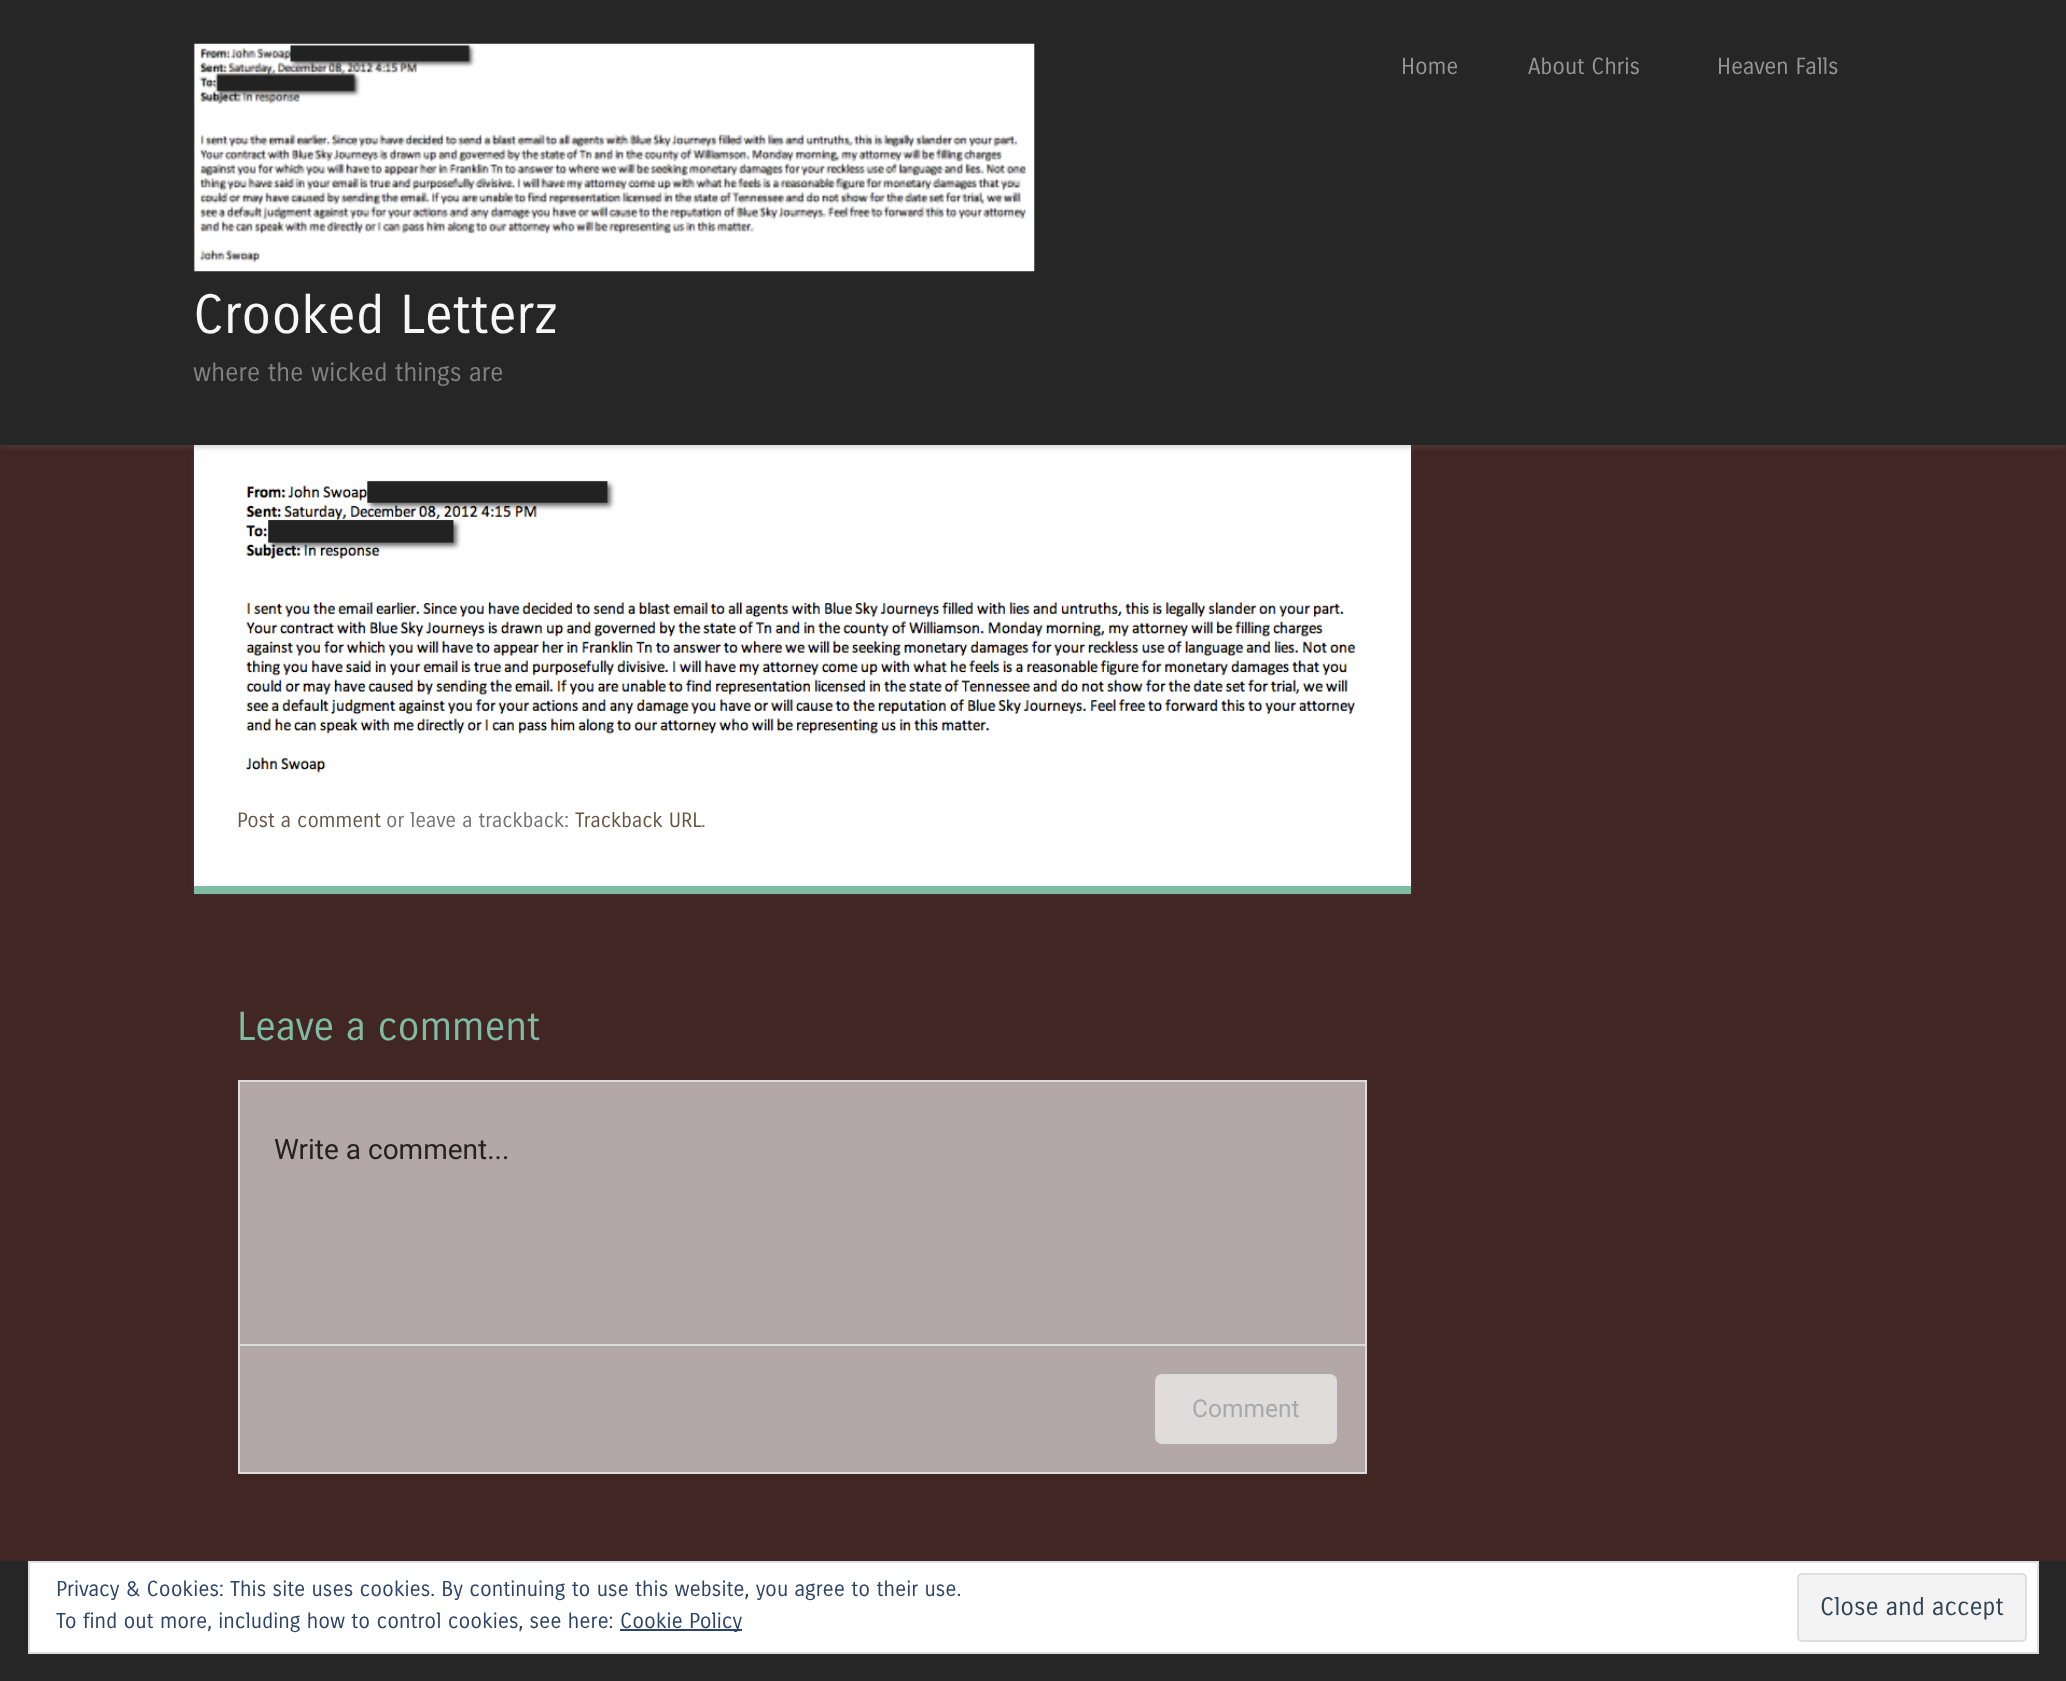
<!DOCTYPE html>
<meta charset="utf-8">
<style>body { margin: 0 } canvas { display: block }</style>
<canvas id="canvas" width="2066" height="1681"></canvas>
<script type="module">
  const canvas = document.getElementById("canvas");
  const ctx = canvas.getContext("2d");
  ctx.miterLimit = 4;
  ctx.fontKerning = "normal";
  async function loadImage(src) {
    const img = new Image();
    img.src = src;
    await img.decode();
    return img;
  }

  ctx.fillStyle = "#422623";
  ctx.fillRect(0, 0, 2066, 1681);
  ctx.fillStyle = "rgba(100, 100, 100, 0.25)";
  ctx.filter = "blur(2.5px)";
  ctx.beginPath();
  ctx.rect(194, 231, 1217, 663);
  ctx.fill();
  ctx.filter = "none";
  ctx.fillStyle = "#ffffff";
  ctx.fillRect(194, 445, 1217, 441);
  ctx.fillStyle = "rgba(100, 100, 100, 0.25)";
  ctx.filter = "blur(2.5px)";
  ctx.beginPath();
  ctx.rect(0, 4, 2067, 444);
  ctx.fill();
  ctx.filter = "none";
  ctx.fillStyle = "#262626";
  ctx.fillRect(0, 0, 2066, 445);
  ctx.font = "22.5px Carrois Gothic";
  ctx.fillStyle = "#969696";
  ctx.fillText("Home", 1401, 74);
  ctx.fillText("About Chris", 1528, 74);
  ctx.fillText("Heaven Falls", 1717, 74);
  ctx.drawImage(await loadImage("img1.png"), 193, 43, 842, 229);
  ctx.font = "53.25px Carrois Gothic";
  ctx.fillStyle = "#f6f6f6";
  ctx.fillText("Crooked Letterz", 193, 333);
  ctx.font = "25.25px Carrois Gothic";
  ctx.fillStyle = "#818181";
  ctx.fillText("where the wicked things are", 193, 381);
  ctx.fillStyle = "#80bca3";
  ctx.fillRect(194, 886, 1217, 8);
  ctx.drawImage(await loadImage("img2.png"), 245, 480, 1111, 293);
  ctx.font = "20.25px Carrois Gothic";
  ctx.fillStyle = "#655643";
  ctx.fillText("Post a comment", 237, 827);
  ctx.fillStyle = "#737373";
  ctx.fillText("or leave a trackback:", 386, 827);
  ctx.fillStyle = "#655643";
  ctx.fillText("Trackback URL", 575, 827);
  ctx.fillStyle = "#737373";
  ctx.fillText(".", 701, 827);
  ctx.font = "39.25px Carrois Gothic";
  ctx.fillStyle = "#80bca3";
  ctx.fillText("Leave a comment", 237, 1040);
  ctx.fillStyle = "#b3a8a7";
  ctx.beginPath();
  ctx.rect(239, 1081, 1127, 392);
  ctx.fill();
  ctx.strokeStyle = "#dcdcde";
  ctx.lineWidth = 2;
  ctx.stroke();
  ctx.font = "28px Roboto";
  ctx.fillStyle = "#242221";
  ctx.fillText("Write a comment...", 274, 1159);
  ctx.fillStyle = "#dcdcde";
  ctx.fillRect(240, 1344, 1125, 2);
  ctx.fillStyle = "#e1dcdc";
  ctx.beginPath();
  ctx.roundRect(1156, 1375, 180, 68, 6);
  ctx.fill();
  ctx.stroke();
  ctx.font = "24.5px Roboto";
  ctx.fillStyle = "#a7aaad";
  ctx.fillText("Comment", 1192, 1417);
  ctx.fillStyle = "#262626";
  ctx.fillRect(0, 1561, 2066, 120);
  ctx.fillStyle = "#ffffff";
  ctx.beginPath();
  ctx.rect(29, 1562, 2009, 91);
  ctx.fill();
  ctx.strokeStyle = "#dedede";
  ctx.stroke();
  ctx.font = "21px Carrois Gothic";
  ctx.fillStyle = "#2e4467";
  ctx.fillText("Privacy & Cookies: This site uses cookies. By continuing to use this website, you agree to their use.", 56, 1596);
  ctx.fillStyle = "#f3f3f3";
  ctx.beginPath();
  ctx.roundRect(1798, 1574, 228, 67, 4);
  ctx.fill();
  ctx.stroke();
  ctx.font = "24.5px Carrois Gothic";
  ctx.fillStyle = "#2e4453";
  ctx.fillText("Close and accept", 1820, 1615);
  ctx.font = "21px Carrois Gothic";
  ctx.fillStyle = "#2e4467";
  ctx.fillText("To find out more, including how to control cookies, see here:", 56, 1628);
  ctx.fillRect(620, 1629, 122, 2);
  ctx.fillText("Cookie Policy", 620, 1628);
</script>
